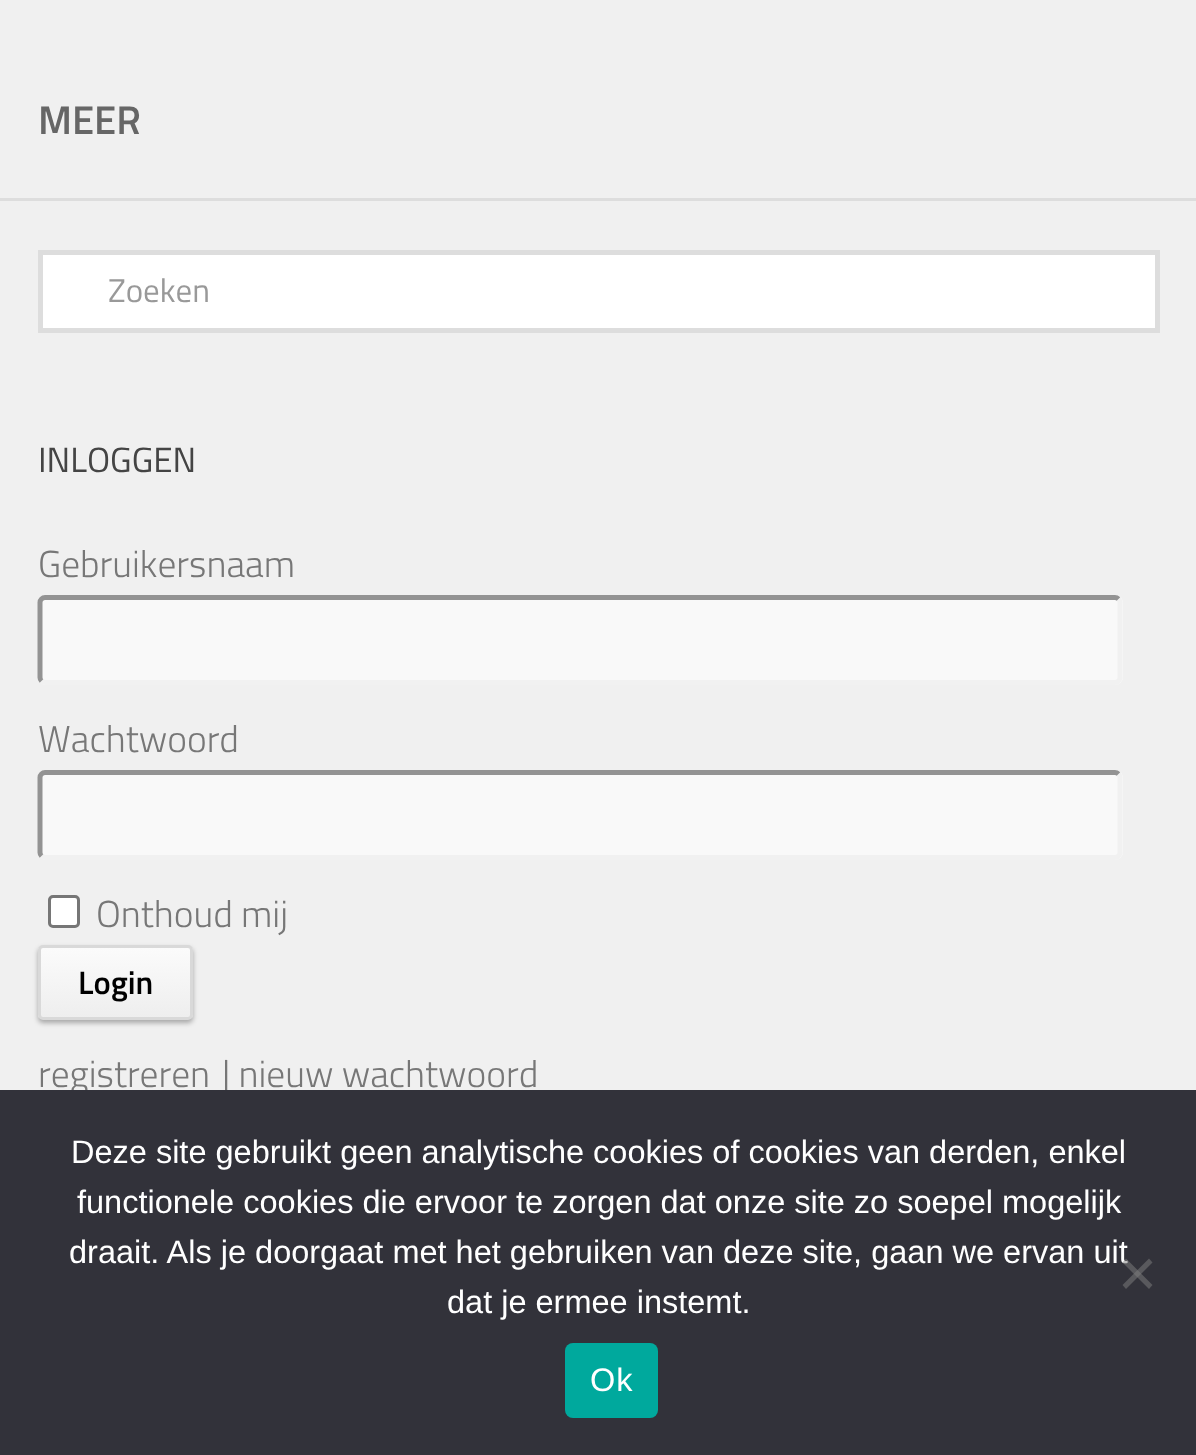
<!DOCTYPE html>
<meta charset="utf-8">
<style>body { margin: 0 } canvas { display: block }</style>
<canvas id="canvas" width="1196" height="1455"></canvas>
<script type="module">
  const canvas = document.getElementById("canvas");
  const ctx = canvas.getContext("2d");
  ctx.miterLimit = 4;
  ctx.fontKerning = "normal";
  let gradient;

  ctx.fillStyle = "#f0f0f0";
  ctx.fillRect(0, 0, 1196, 1455);
  ctx.fillStyle = "#dddddd";
  ctx.fillRect(0, 198, 1196, 3);
  ctx.font = "600 40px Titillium";
  ctx.fillStyle = "#666666";
  ctx.fillText("MEER", 38, 134);
  ctx.fillStyle = "#ffffff";
  ctx.beginPath();
  ctx.rect(40.5, 252.5, 1117, 78);
  ctx.fill();
  ctx.strokeStyle = "#dddddd";
  ctx.lineWidth = 5;
  ctx.stroke();
  ctx.font = "33px Titillium";
  ctx.fillStyle = "#999999";
  ctx.fillText("Zoeken", 108, 302);
  ctx.font = "35px Titillium";
  ctx.fillStyle = "#444444";
  ctx.fillText("INLOGGEN", 38, 472);
  ctx.font = "300 37.5px Titillium";
  ctx.fillStyle = "#777777";
  ctx.fillText("Gebruikersnaam", 38, 577);
  ctx.fillStyle = "#f9f9f9";
  ctx.beginPath();
  ctx.roundRect(38, 595, 1085, 90, 8);
  ctx.fill();
  ctx.beginPath();
  ctx.moveTo(1118.5, 599);
  ctx.bezierCurveTo(1119.5, 600, 1120, 601, 1120, 602.5);
  ctx.lineTo(1120, 677.5);
  ctx.bezierCurveTo(1120, 679, 1119.5, 680, 1118.5, 681);
  ctx.bezierCurveTo(1117.5, 682, 1116.5, 682.5, 1115, 682.5);
  ctx.lineTo(45, 682.5);
  ctx.bezierCurveTo(43.5, 682.5, 42.5, 682, 41.5, 681);
  ctx.strokeStyle = "#f1f1f1";
  ctx.stroke();
  ctx.beginPath();
  ctx.moveTo(41.5, 681);
  ctx.bezierCurveTo(40.5, 680, 40, 679, 40, 677.5);
  ctx.lineTo(40, 602.5);
  ctx.bezierCurveTo(40, 601, 40.5, 600, 41.5, 599);
  ctx.bezierCurveTo(42.5, 598, 43.5, 597.5, 45, 597.5);
  ctx.lineTo(1115, 597.5);
  ctx.bezierCurveTo(1116.5, 597.5, 1117.5, 598, 1118.5, 599);
  ctx.strokeStyle = "#939393";
  ctx.stroke();
  ctx.fillStyle = "#777777";
  ctx.fillText("Wachtwoord", 38, 752);
  ctx.fillStyle = "#f9f9f9";
  ctx.beginPath();
  ctx.roundRect(38, 770, 1085, 90, 8);
  ctx.fill();
  ctx.beginPath();
  ctx.moveTo(1118.5, 774);
  ctx.bezierCurveTo(1119.5, 775, 1120, 776, 1120, 777.5);
  ctx.lineTo(1120, 852.5);
  ctx.bezierCurveTo(1120, 854, 1119.5, 855, 1118.5, 856);
  ctx.bezierCurveTo(1117.5, 857, 1116.5, 857.5, 1115, 857.5);
  ctx.lineTo(45, 857.5);
  ctx.bezierCurveTo(43.5, 857.5, 42.5, 857, 41.5, 856);
  ctx.strokeStyle = "#f1f1f1";
  ctx.stroke();
  ctx.beginPath();
  ctx.moveTo(41.5, 856);
  ctx.bezierCurveTo(40.5, 855, 40, 854, 40, 852.5);
  ctx.lineTo(40, 777.5);
  ctx.bezierCurveTo(40, 776, 40.5, 775, 41.5, 774);
  ctx.bezierCurveTo(42.5, 773, 43.5, 772.5, 45, 772.5);
  ctx.lineTo(1115, 772.5);
  ctx.bezierCurveTo(1116.5, 772.5, 1117.5, 773, 1118.5, 774);
  ctx.strokeStyle = "#939393";
  ctx.stroke();
  ctx.fillStyle = "#ffffff";
  ctx.beginPath();
  ctx.roundRect(49.5, 896.5, 29, 30, 3.5);
  ctx.fill();
  ctx.strokeStyle = "#767676";
  ctx.lineWidth = 3;
  ctx.stroke();
  ctx.fillStyle = "#777777";
  ctx.fillText("Onthoud mij", 96, 927);
  ctx.fillStyle = "rgba(0, 0, 0, 0.3)";
  ctx.filter = "blur(2.5px)";
  ctx.beginPath();
  ctx.roundRect(38, 948, 155, 75, 5);
  ctx.fill();
  ctx.filter = "none";
  ctx.save();
  ctx.beginPath();
  ctx.roundRect(38, 945, 155, 75, 5);
  ctx.clip();
  gradient = ctx.createLinearGradient(115, 948, 115, 1018);
  gradient.addColorStop(0, "#fbfbfb");
  gradient.addColorStop(1, "#eeeeee");
  ctx.fillStyle = gradient;
  ctx.fillRect(38, 948, 155, 70);
  ctx.restore();
  ctx.beginPath();
  ctx.roundRect(39.5, 946.5, 152, 72, 3.5);
  ctx.strokeStyle = "#d9d9d9";
  ctx.stroke();
  ctx.font = "600 32.5px Titillium";
  ctx.fillStyle = "#000000";
  ctx.fillText("Login", 78, 994);
  ctx.font = "300 37.5px Titillium";
  ctx.fillStyle = "#777777";
  ctx.fillText("registreren", 38, 1087);
  ctx.fillText("| nieuw wachtwoord", 222, 1087);
  ctx.fillStyle = "#32323a";
  ctx.fillRect(0, 1090, 1196, 365);
  ctx.font = "32.5px Liberation Sans";
  ctx.fillStyle = "#ffffff";
  ctx.fillText("Deze site gebruikt geen analytische cookies of cookies van derden, enkel", 71, 1163);
  ctx.fillText("functionele cookies die ervoor te zorgen dat onze site zo soepel mogelijk", 77, 1213);
  ctx.fillText("draait. Als je doorgaat met het gebruiken van deze site, gaan we ervan uit", 69, 1263);
  ctx.fillText("dat je ermee instemt.", 447, 1313);
  ctx.fillStyle = "#59595d";
  ctx.beginPath();
  ctx.moveTo(1149, 1258.5);
  ctx.lineTo(1152.5, 1262.5);
  ctx.lineTo(1126, 1289);
  ctx.lineTo(1122.5, 1285);
  ctx.closePath();
  ctx.fill();
  ctx.fillStyle = "rgba(128, 128, 128, 0.5)";
  ctx.beginPath();
  ctx.moveTo(1122.5, 1262.5);
  ctx.lineTo(1126, 1258.5);
  ctx.lineTo(1152.5, 1285);
  ctx.lineTo(1149, 1289);
  ctx.closePath();
  ctx.fill();
  ctx.fillStyle = "#00a99d";
  ctx.beginPath();
  ctx.roundRect(565, 1343, 93, 75, 8);
  ctx.fill();
  ctx.letterSpacing = "1px";
  ctx.fillStyle = "#ffffff";
  ctx.fillText("Ok", 590, 1391);
</script>
